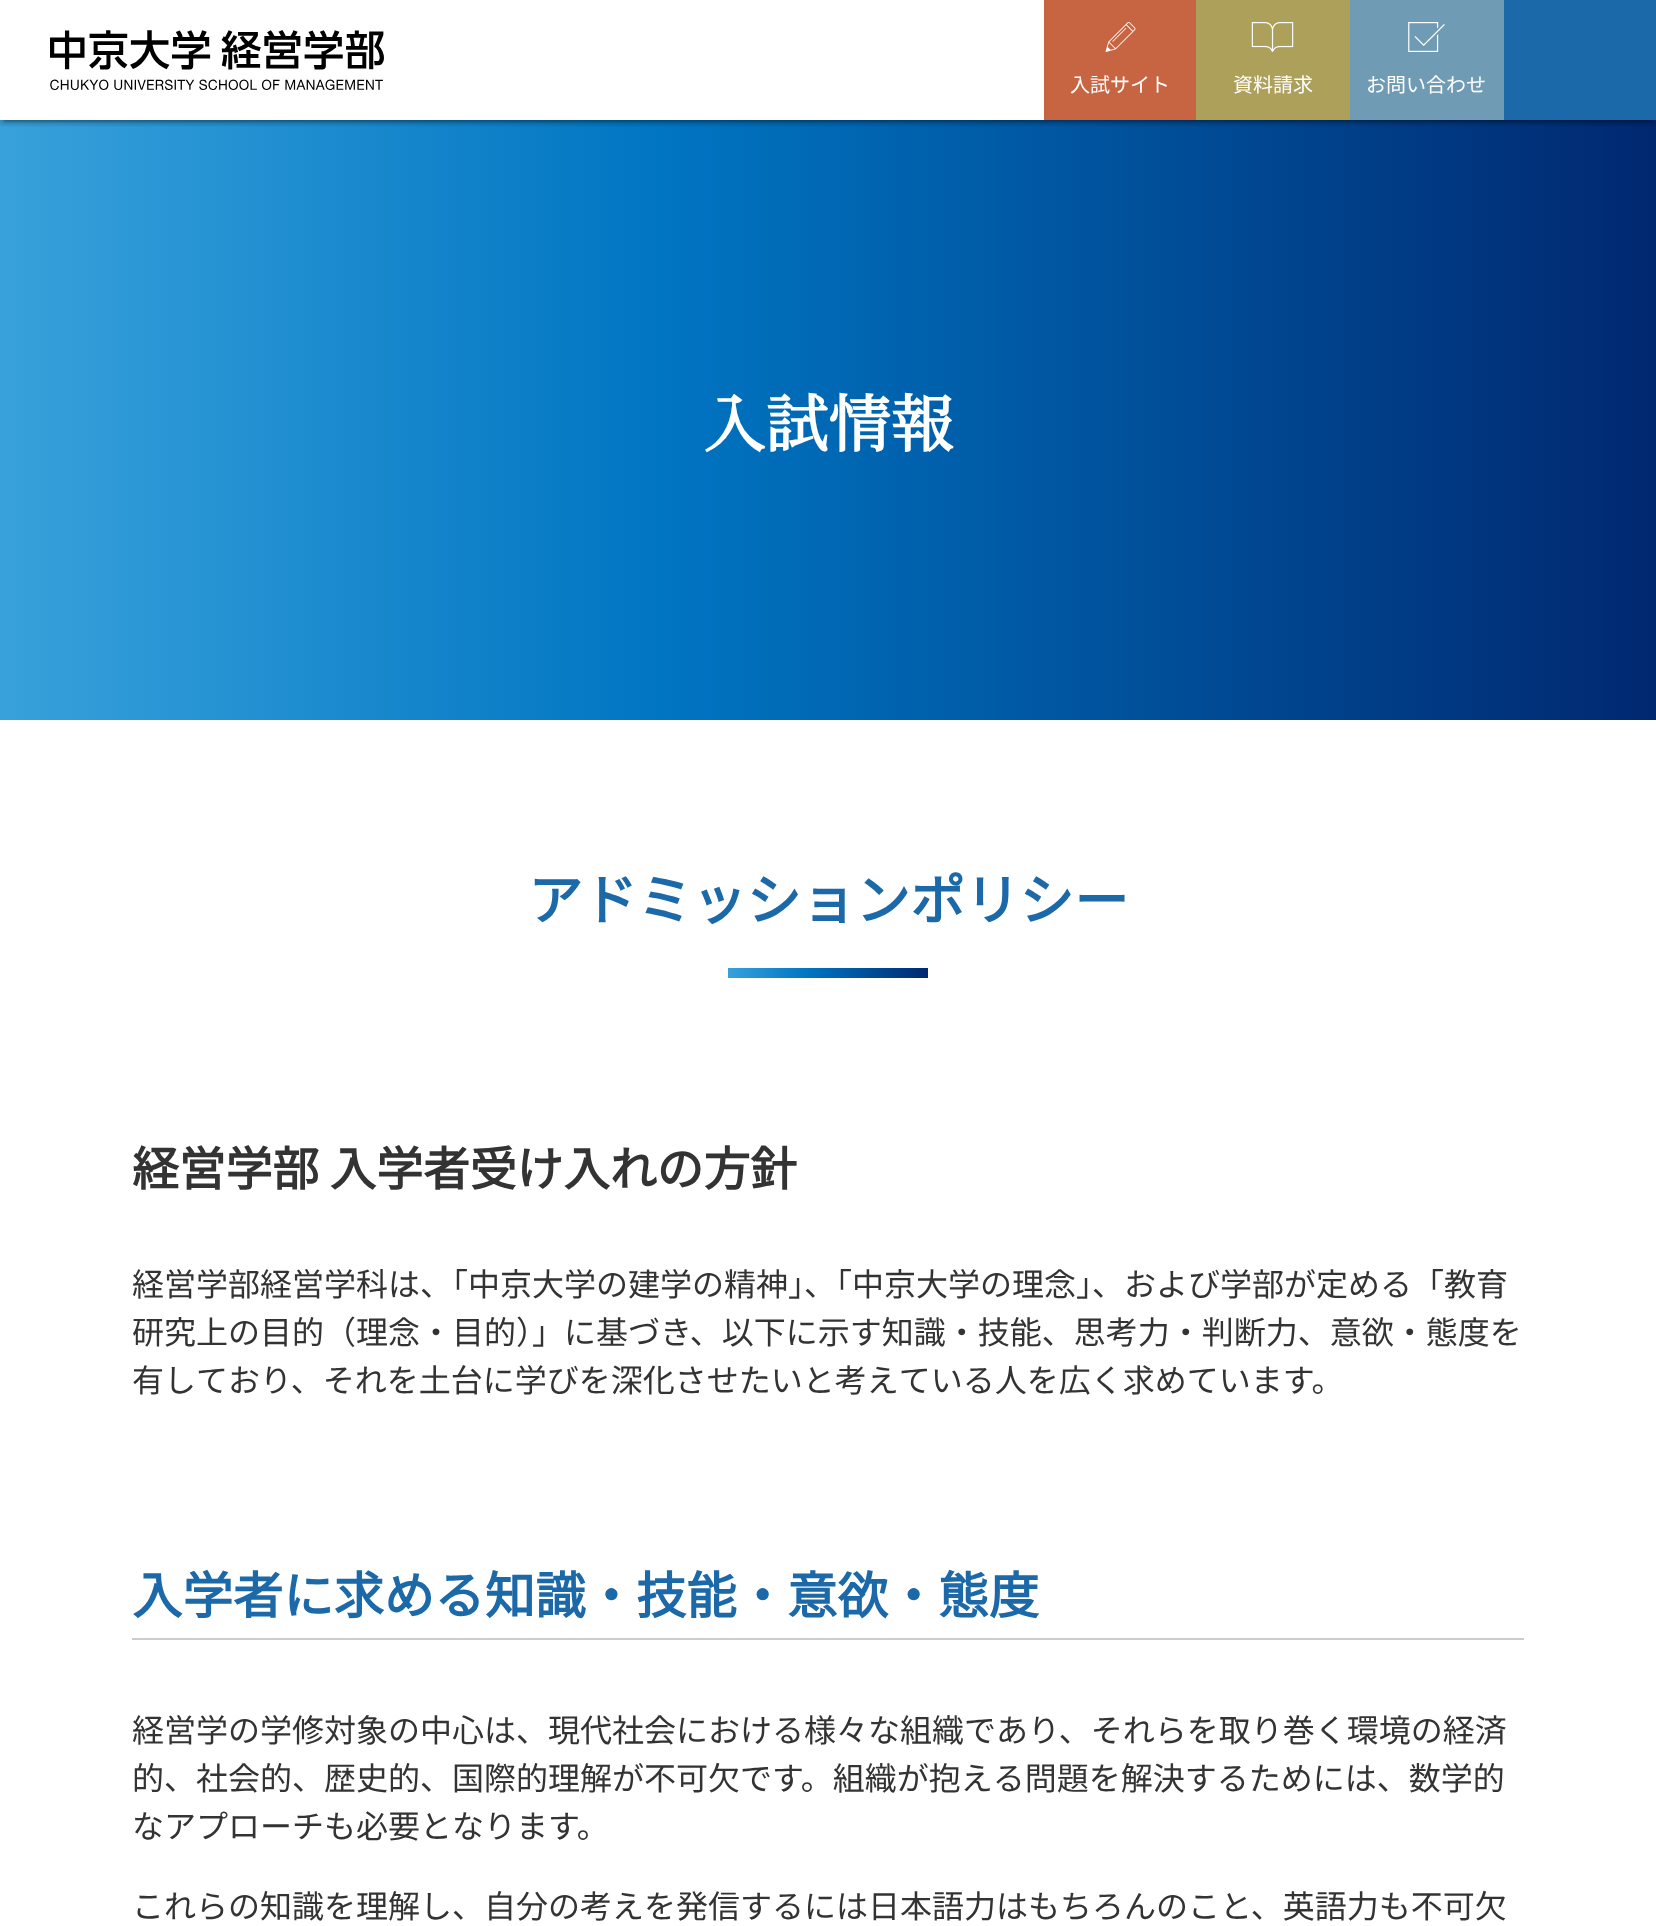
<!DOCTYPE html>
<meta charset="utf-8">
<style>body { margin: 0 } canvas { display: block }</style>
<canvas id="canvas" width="1656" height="1926"></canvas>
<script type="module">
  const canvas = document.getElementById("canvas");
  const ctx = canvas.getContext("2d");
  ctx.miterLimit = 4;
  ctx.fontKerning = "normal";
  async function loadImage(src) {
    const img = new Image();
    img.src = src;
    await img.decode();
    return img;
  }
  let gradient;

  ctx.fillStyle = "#ffffff";
  ctx.fillRect(0, 0, 1656, 1926);
  gradient = ctx.createLinearGradient(0, 420, 1656, 420);
  gradient.addColorStop(0, "#38a1db");
  gradient.addColorStop(0.4, "#0075c2");
  gradient.addColorStop(1, "#002870");
  ctx.fillStyle = gradient;
  ctx.fillRect(0, 120, 1656, 600);
  ctx.save();
  ctx.beginPath();
  ctx.rect(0, 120, 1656, 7);
  ctx.clip();
  ctx.fillStyle = "rgba(0, 0, 0, 0.12)";
  ctx.filter = "blur(5px)";
  ctx.beginPath();
  ctx.rect(0, 2, 1656, 120);
  ctx.fill();
  ctx.filter = "none";
  ctx.restore();
  ctx.save();
  ctx.beginPath();
  ctx.rect(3, 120, 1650, 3);
  ctx.clip();
  ctx.fillStyle = "rgba(0, 0, 0, 0.2)";
  ctx.filter = "blur(1px)";
  ctx.beginPath();
  ctx.rect(4, 10, 1648, 112);
  ctx.fill();
  ctx.filter = "none";
  ctx.restore();
  ctx.save();
  ctx.beginPath();
  ctx.rect(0, 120, 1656, 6);
  ctx.clip();
  ctx.fillStyle = "rgba(0, 0, 0, 0.14)";
  ctx.filter = "blur(2px)";
  ctx.beginPath();
  ctx.rect(0, 4, 1656, 120);
  ctx.fill();
  ctx.filter = "none";
  ctx.restore();
  ctx.drawImage(await loadImage("img1.png"), 50, 30, 334, 60);
  ctx.fillStyle = "#c76542";
  ctx.fillRect(1044, 0, 152, 120);
  ctx.drawImage(await loadImage("img2.png"), 1105, 22, 31, 30);
  ctx.font = "100 20px Noto Sans JP";
  ctx.fillStyle = "#ffffff";
  ctx.fillText("入試サイト", 1070, 92);
  ctx.fillStyle = "#ada05a";
  ctx.fillRect(1196, 0, 154, 120);
  ctx.drawImage(await loadImage("img3.png"), 1251, 22, 43, 30);
  ctx.fillStyle = "#ffffff";
  ctx.fillText("資料請求", 1233, 92);
  ctx.fillStyle = "#709bb4";
  ctx.fillRect(1350, 0, 154, 120);
  ctx.drawImage(await loadImage("img4.png"), 1408, 22, 37, 30);
  ctx.fillStyle = "#ffffff";
  ctx.fillText("お問い合わせ", 1366, 92);
  ctx.fillStyle = "#1c69a9";
  ctx.fillRect(1504, 0, 152, 120);
  ctx.font = "bold 62.5px Noto Serif JP";
  ctx.fillStyle = "#ffffff";
  ctx.fillText("入試情報", 703, 447);
  ctx.font = "bold 54.6px Noto Sans JP";
  ctx.fillStyle = "#1c69a9";
  ctx.fillText("アドミッションポリシー", 528, 920);
  gradient = ctx.createLinearGradient(728, 973, 928, 973);
  gradient.addColorStop(0, "#38a1db");
  gradient.addColorStop(0.4, "#0075c2");
  gradient.addColorStop(1, "#002870");
  ctx.fillStyle = gradient;
  ctx.fillRect(728, 968, 200, 10);
  ctx.font = "bold 46.75px Noto Sans JP";
  ctx.fillStyle = "#333333";
  ctx.fillText("経営学部 入学者受け入れの方針", 132, 1186);
  ctx.font = "100 32px Noto Sans JP";
  ctx.fillText("経営学部経営学科は、「中京大学の建学の精神」、「中京大学の理念」、および学部が定める「教育", 132, 1296);
  ctx.fillText("研究上の目的（理念・目的）」に基づき、以下に示す知識・技能、思考力・判断力、意欲・態度を", 132, 1344);
  ctx.fillText("有しており、それを土台に学びを深化させたいと考えている人を広く求めています。", 132, 1392);
  ctx.fillStyle = "#cccccc";
  ctx.fillRect(132, 1638, 1392, 2);
  ctx.font = "bold 50.4px Noto Sans JP";
  ctx.fillStyle = "#1c69a9";
  ctx.fillText("入学者に求める知識・技能・意欲・態度", 132, 1614);
  ctx.font = "100 32px Noto Sans JP";
  ctx.fillStyle = "#333333";
  ctx.fillText("経営学の学修対象の中心は、現代社会における様々な組織であり、それらを取り巻く環境の経済", 132, 1742);
  ctx.fillText("的、社会的、歴史的、国際的理解が不可欠です。組織が抱える問題を解決するためには、数学的", 132, 1790);
  ctx.fillText("なアプローチも必要となります。", 132, 1838);
  ctx.fillText("これらの知識を理解し、自分の考えを発信するには日本語力はもちろんのこと、英語力も不可欠", 132, 1918);
</script>
